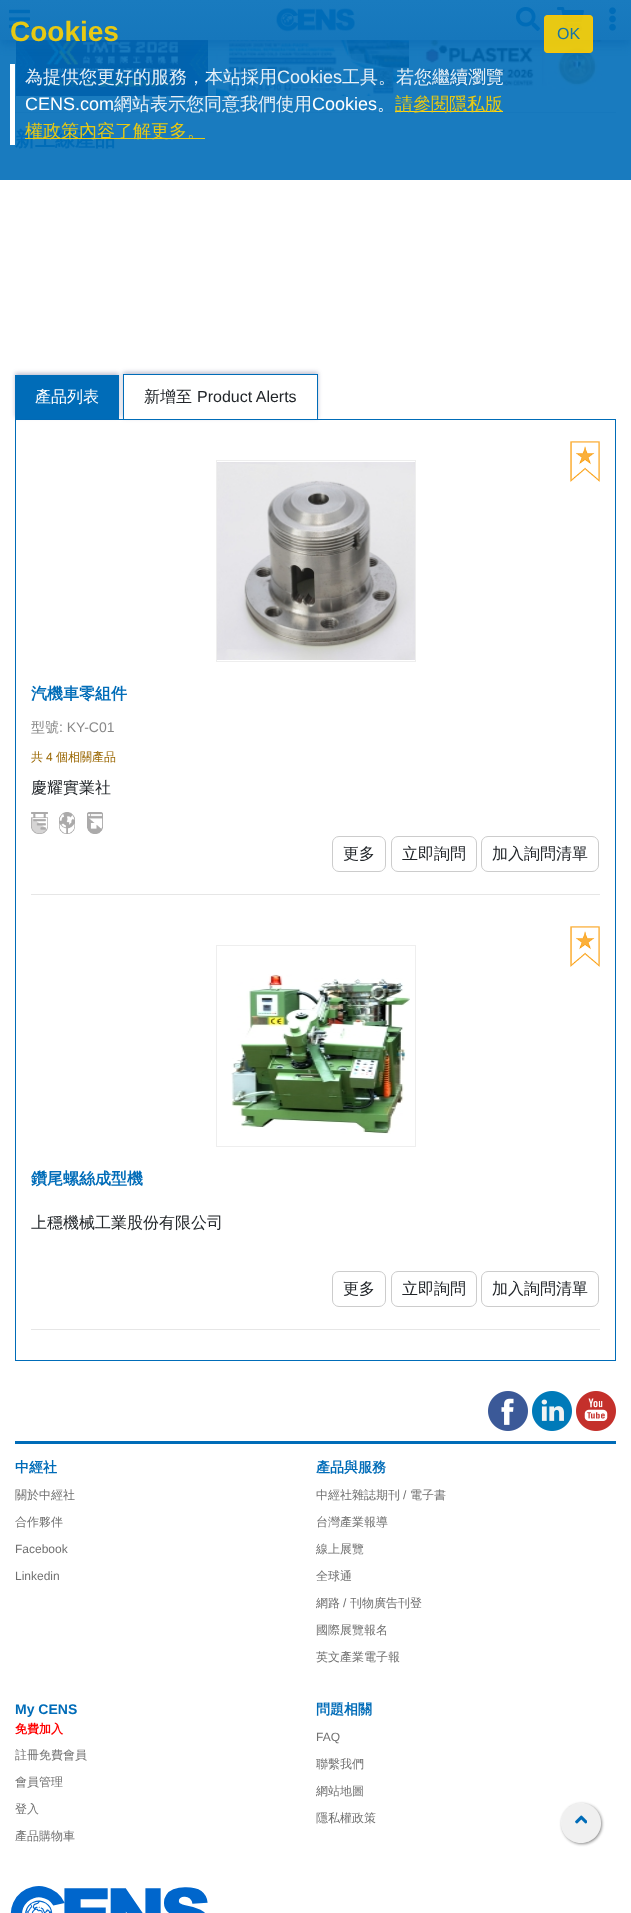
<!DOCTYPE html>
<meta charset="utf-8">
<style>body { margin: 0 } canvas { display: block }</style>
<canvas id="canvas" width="631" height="1913"></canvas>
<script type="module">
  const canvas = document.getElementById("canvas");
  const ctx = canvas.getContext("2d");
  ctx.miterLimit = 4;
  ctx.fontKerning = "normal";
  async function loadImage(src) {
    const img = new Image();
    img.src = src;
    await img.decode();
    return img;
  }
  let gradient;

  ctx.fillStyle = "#ffffff";
  ctx.fillRect(0, 0, 631, 1913);
  ctx.fillStyle = "#197bbf";
  ctx.fillRect(0, 40, 631, 140);
  ctx.drawImage(await loadImage("img6.png"), 16, 40, 192, 56);
  ctx.drawImage(await loadImage("img7.png"), 216, 40, 193, 56);
  ctx.drawImage(await loadImage("img8.png"), 417, 40, 185, 50);
  ctx.fillStyle = "rgba(5, 102, 176, 0.5)";
  ctx.filter = "blur(5px)";
  ctx.beginPath();
  ctx.rect(0, 5, 631, 40);
  ctx.fill();
  ctx.filter = "none";
  gradient = ctx.createLinearGradient(316, 0, 316, 40);
  gradient.addColorStop(0, "#197bbf");
  gradient.addColorStop(1, "#1677bc");
  ctx.fillStyle = gradient;
  ctx.fillRect(0, 0, 631, 40);
  ctx.drawImage(await loadImage("img1.png"), 9, 9, 21, 20);
  ctx.drawImage(await loadImage("img2.png"), 276, 8, 79, 24);
  ctx.drawImage(await loadImage("img3.png"), 516, 7, 24, 24);
  ctx.drawImage(await loadImage("img4.png"), 557, 7, 27, 24);
  ctx.drawImage(await loadImage("img5.png"), 609, 7, 7, 24);
  ctx.font = "bold 28px Liberation Sans";
  ctx.fillStyle = "#e8c913";
  ctx.fillText("Cookies", 10, 41);
  ctx.fillStyle = "#ffffff";
  ctx.fillRect(10, 64, 5, 81);
  ctx.font = "500 18px WenQuanYi Zen Hei";
  ctx.fillStyle = "#e7f0f7";
  ctx.fillText("為提供您更好的服務，本站採用", 25, 83);
  ctx.font = "18px Liberation Sans";
  ctx.fillText("Cookies", 277, 83);
  ctx.font = "500 18px WenQuanYi Zen Hei";
  ctx.fillText("工具。若您繼續瀏覽", 342, 83);
  ctx.font = "18px Liberation Sans";
  ctx.fillStyle = "#ffffff";
  ctx.fillText("CENS.com", 25, 110);
  ctx.fillStyle = "#1678bd";
  ctx.fillRect(15, 112, 601, 1);
  ctx.font = "500 18px WenQuanYi Zen Hei";
  ctx.fillStyle = "#e7f0f7";
  ctx.fillText("網站表示您同意我們使用", 114, 110);
  ctx.font = "18px Liberation Sans";
  ctx.fillStyle = "#ffffff";
  ctx.fillText("Cookies", 312, 110);
  ctx.font = "500 18px WenQuanYi Zen Hei";
  ctx.fillText("。", 377, 110);
  ctx.fillStyle = "#ffd71a";
  ctx.fillRect(395, 111, 108, 1);
  ctx.fillStyle = "#e8c913";
  ctx.fillText("請參閱隱私版", 395, 110);
  ctx.font = "bold 20px WenQuanYi Zen Hei";
  ctx.fillStyle = "#006cb8";
  ctx.fillText("新上線產品", 15, 146);
  ctx.fillStyle = "rgba(255, 210, 0, 0.9)";
  ctx.fillRect(25, 138, 180, 1);
  ctx.font = "500 18px WenQuanYi Zen Hei";
  ctx.fillStyle = "#e8c913";
  ctx.fillText("權政策內容了解更多。", 25, 137);
  ctx.fillStyle = "rgba(255, 210, 0, 0.9)";
  ctx.beginPath();
  ctx.roundRect(544, 15, 49, 38, 4);
  ctx.fill();
  ctx.beginPath();
  ctx.roundRect(544.5, 15.5, 48, 37, 3.5);
  ctx.strokeStyle = "rgba(255, 193, 7, 0.9)";
  ctx.stroke();
  ctx.font = "16px Liberation Sans";
  ctx.fillStyle = "#1775a7";
  ctx.fillText("OK", 557, 39);
  ctx.strokeStyle = "#006cb8";
  ctx.strokeRect(15.5, 419.5, 600, 941);
  ctx.fillStyle = "rgba(51, 51, 102, 0.3)";
  ctx.filter = "blur(2px)";
  ctx.beginPath();
  ctx.rect(15, 373, 104, 44);
  ctx.fill();
  ctx.filter = "none";
  ctx.fillStyle = "#006cb8";
  ctx.fillRect(15, 375, 104, 44);
  ctx.font = "500 16px WenQuanYi Zen Hei";
  ctx.fillStyle = "#ffffff";
  ctx.fillText("產品列表", 35, 402);
  ctx.save();
  ctx.beginPath();
  ctx.moveTo(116, 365);
  ctx.lineTo(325, 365);
  ctx.lineTo(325, 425);
  ctx.lineTo(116, 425);
  ctx.closePath();
  ctx.moveTo(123, 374);
  ctx.lineTo(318, 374);
  ctx.lineTo(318, 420);
  ctx.lineTo(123, 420);
  ctx.closePath();
  ctx.clip("evenodd");
  ctx.fillStyle = "rgba(51, 51, 102, 0.3)";
  ctx.filter = "blur(2px)";
  ctx.beginPath();
  ctx.rect(123, 372, 195, 46);
  ctx.fill();
  ctx.filter = "none";
  ctx.restore();
  ctx.strokeRect(123.5, 374.5, 194, 45);
  ctx.fillStyle = "#212529";
  ctx.fillText("新增至", 144, 402);
  ctx.font = "16px Liberation Sans";
  ctx.fillText("Product Alerts", 197, 402);
  ctx.strokeStyle = "#eeeeee";
  ctx.strokeRect(216.5, 460.5, 199, 201);
  ctx.drawImage(await loadImage("img9.png"), 217, 462, 198, 198);
  ctx.drawImage(await loadImage("img10.png"), 570, 441, 30, 41);
  ctx.font = "bold 16px WenQuanYi Zen Hei";
  ctx.fillStyle = "#006cb8";
  ctx.fillText("汽機車零組件", 31, 699);
  ctx.font = "500 14px WenQuanYi Zen Hei";
  ctx.fillStyle = "#888888";
  ctx.fillText("型號", 31, 732);
  ctx.font = "14px Liberation Sans";
  ctx.fillText(": KY-C01", 59, 732);
  ctx.font = "500 12px WenQuanYi Zen Hei";
  ctx.fillStyle = "#996600";
  ctx.fillText("共", 31, 761);
  ctx.font = "12px Liberation Sans";
  ctx.fillText("4", 46, 761);
  ctx.font = "500 12px WenQuanYi Zen Hei";
  ctx.fillText("個相關產品", 56, 761);
  ctx.font = "500 16px WenQuanYi Zen Hei";
  ctx.fillStyle = "#212529";
  ctx.fillText("慶耀實業社", 31, 793);
  ctx.drawImage(await loadImage("img11.png"), 31, 812, 17, 22);
  ctx.drawImage(await loadImage("img12.png"), 59, 812, 16, 22);
  ctx.drawImage(await loadImage("img13.png"), 87, 812, 16, 22);
  ctx.beginPath();
  ctx.roundRect(332.5, 836.5, 53, 35, 6.5);
  ctx.strokeStyle = "#cccccc";
  ctx.stroke();
  ctx.fillText("更多", 343, 859);
  ctx.beginPath();
  ctx.roundRect(391.5, 836.5, 85, 35, 6.5);
  ctx.stroke();
  ctx.fillText("立即詢問", 402, 859);
  ctx.beginPath();
  ctx.roundRect(481.5, 836.5, 117, 35, 6.5);
  ctx.stroke();
  ctx.fillText("加入詢問清單", 492, 859);
  ctx.fillStyle = "#e6e6e6";
  ctx.fillRect(31, 894, 569, 1);
  ctx.strokeStyle = "#eeeeee";
  ctx.strokeRect(216.5, 945.5, 199, 201);
  ctx.drawImage(await loadImage("img14.png"), 231, 974, 179, 160);
  ctx.drawImage(await loadImage("img10.png"), 570, 926, 30, 41);
  ctx.font = "bold 16px WenQuanYi Zen Hei";
  ctx.fillStyle = "#006cb8";
  ctx.fillText("鑽尾螺絲成型機", 31, 1184);
  ctx.font = "500 16px WenQuanYi Zen Hei";
  ctx.fillStyle = "#212529";
  ctx.fillText("上穩機械工業股份有限公司", 31, 1228);
  ctx.beginPath();
  ctx.roundRect(332.5, 1271.5, 53, 35, 6.5);
  ctx.strokeStyle = "#cccccc";
  ctx.stroke();
  ctx.fillText("更多", 343, 1294);
  ctx.beginPath();
  ctx.roundRect(391.5, 1271.5, 85, 35, 6.5);
  ctx.stroke();
  ctx.fillText("立即詢問", 402, 1294);
  ctx.beginPath();
  ctx.roundRect(481.5, 1271.5, 117, 35, 6.5);
  ctx.stroke();
  ctx.fillText("加入詢問清單", 492, 1294);
  ctx.fillStyle = "#e6e6e6";
  ctx.fillRect(31, 1329, 569, 1);
  ctx.drawImage(await loadImage("img15.png"), 488, 1391, 40, 40);
  ctx.drawImage(await loadImage("img16.png"), 532, 1391, 40, 40);
  ctx.drawImage(await loadImage("img17.png"), 576, 1391, 40, 40);
  ctx.fillStyle = "#006cb8";
  ctx.fillRect(15, 1441, 601, 3);
  ctx.font = "bold 14px WenQuanYi Zen Hei";
  ctx.fillText("中經社", 15, 1472);
  ctx.font = "500 12px WenQuanYi Zen Hei";
  ctx.fillStyle = "#707070";
  ctx.fillText("關於中經社", 15, 1499);
  ctx.fillText("合作夥伴", 15, 1526);
  ctx.font = "12px Liberation Sans";
  ctx.fillText("Facebook", 15, 1553);
  ctx.fillText("Linkedin", 15, 1580);
  ctx.font = "bold 14px WenQuanYi Zen Hei";
  ctx.fillStyle = "#006cb8";
  ctx.fillText("產品與服務", 316, 1472);
  ctx.font = "500 12px WenQuanYi Zen Hei";
  ctx.fillStyle = "#707070";
  ctx.fillText("中經社雜誌期刊", 316, 1499);
  ctx.font = "12px Liberation Sans";
  ctx.fillText("/", 403, 1499);
  ctx.font = "500 12px WenQuanYi Zen Hei";
  ctx.fillText("電子書", 410, 1499);
  ctx.fillText("台灣產業報導", 316, 1526);
  ctx.fillText("線上展覽", 316, 1553);
  ctx.fillText("全球通", 316, 1580);
  ctx.fillText("網路", 316, 1607);
  ctx.font = "12px Liberation Sans";
  ctx.fillText("/", 343, 1607);
  ctx.font = "500 12px WenQuanYi Zen Hei";
  ctx.fillText("刊物廣告刊登", 350, 1607);
  ctx.fillText("國際展覽報名", 316, 1634);
  ctx.fillText("英文產業電子報", 316, 1661);
  ctx.font = "bold 14px Liberation Sans";
  ctx.fillStyle = "#006cb8";
  ctx.fillText("My CENS", 15, 1714);
  ctx.font = "bold 12px WenQuanYi Zen Hei";
  ctx.fillStyle = "#ff0000";
  ctx.fillText("免費加入", 15, 1733);
  ctx.font = "500 12px WenQuanYi Zen Hei";
  ctx.fillStyle = "#707070";
  ctx.fillText("註冊免費會員", 15, 1759);
  ctx.fillText("會員管理", 15, 1786);
  ctx.fillText("登入", 15, 1813);
  ctx.fillText("產品購物車", 15, 1840);
  ctx.font = "bold 14px WenQuanYi Zen Hei";
  ctx.fillStyle = "#006cb8";
  ctx.fillText("問題相關", 316, 1714);
  ctx.font = "12px Liberation Sans";
  ctx.fillStyle = "#707070";
  ctx.fillText("FAQ", 316, 1741);
  ctx.font = "500 12px WenQuanYi Zen Hei";
  ctx.fillText("聯繫我們", 316, 1768);
  ctx.fillText("網站地圖", 316, 1795);
  ctx.fillText("隱私權政策", 316, 1822);
  ctx.drawImage(await loadImage("img18.png"), 10, 1886, 198, 27);
  ctx.save();
  ctx.beginPath();
  ctx.moveTo(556, 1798);
  ctx.lineTo(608, 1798);
  ctx.lineTo(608, 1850);
  ctx.lineTo(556, 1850);
  ctx.closePath();
  ctx.moveTo(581, 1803);
  ctx.bezierCurveTo(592, 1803, 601, 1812, 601, 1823);
  ctx.bezierCurveTo(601, 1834, 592, 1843, 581, 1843);
  ctx.bezierCurveTo(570, 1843, 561, 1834, 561, 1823);
  ctx.bezierCurveTo(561, 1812, 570, 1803, 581, 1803);
  ctx.closePath();
  ctx.clip("evenodd");
  ctx.fillStyle = "#888888";
  ctx.filter = "blur(1.5px)";
  ctx.beginPath();
  ctx.roundRect(562, 1804, 40, 40, 20);
  ctx.fill();
  ctx.filter = "none";
  ctx.restore();
  ctx.fillStyle = "rgba(226, 226, 226, 0.5)";
  ctx.beginPath();
  ctx.arc(581, 1823, 20, 0, Math.PI * 2);
  ctx.fill();
  ctx.drawImage(await loadImage("img19.png"), 575, 1815, 12, 9);
</script>
